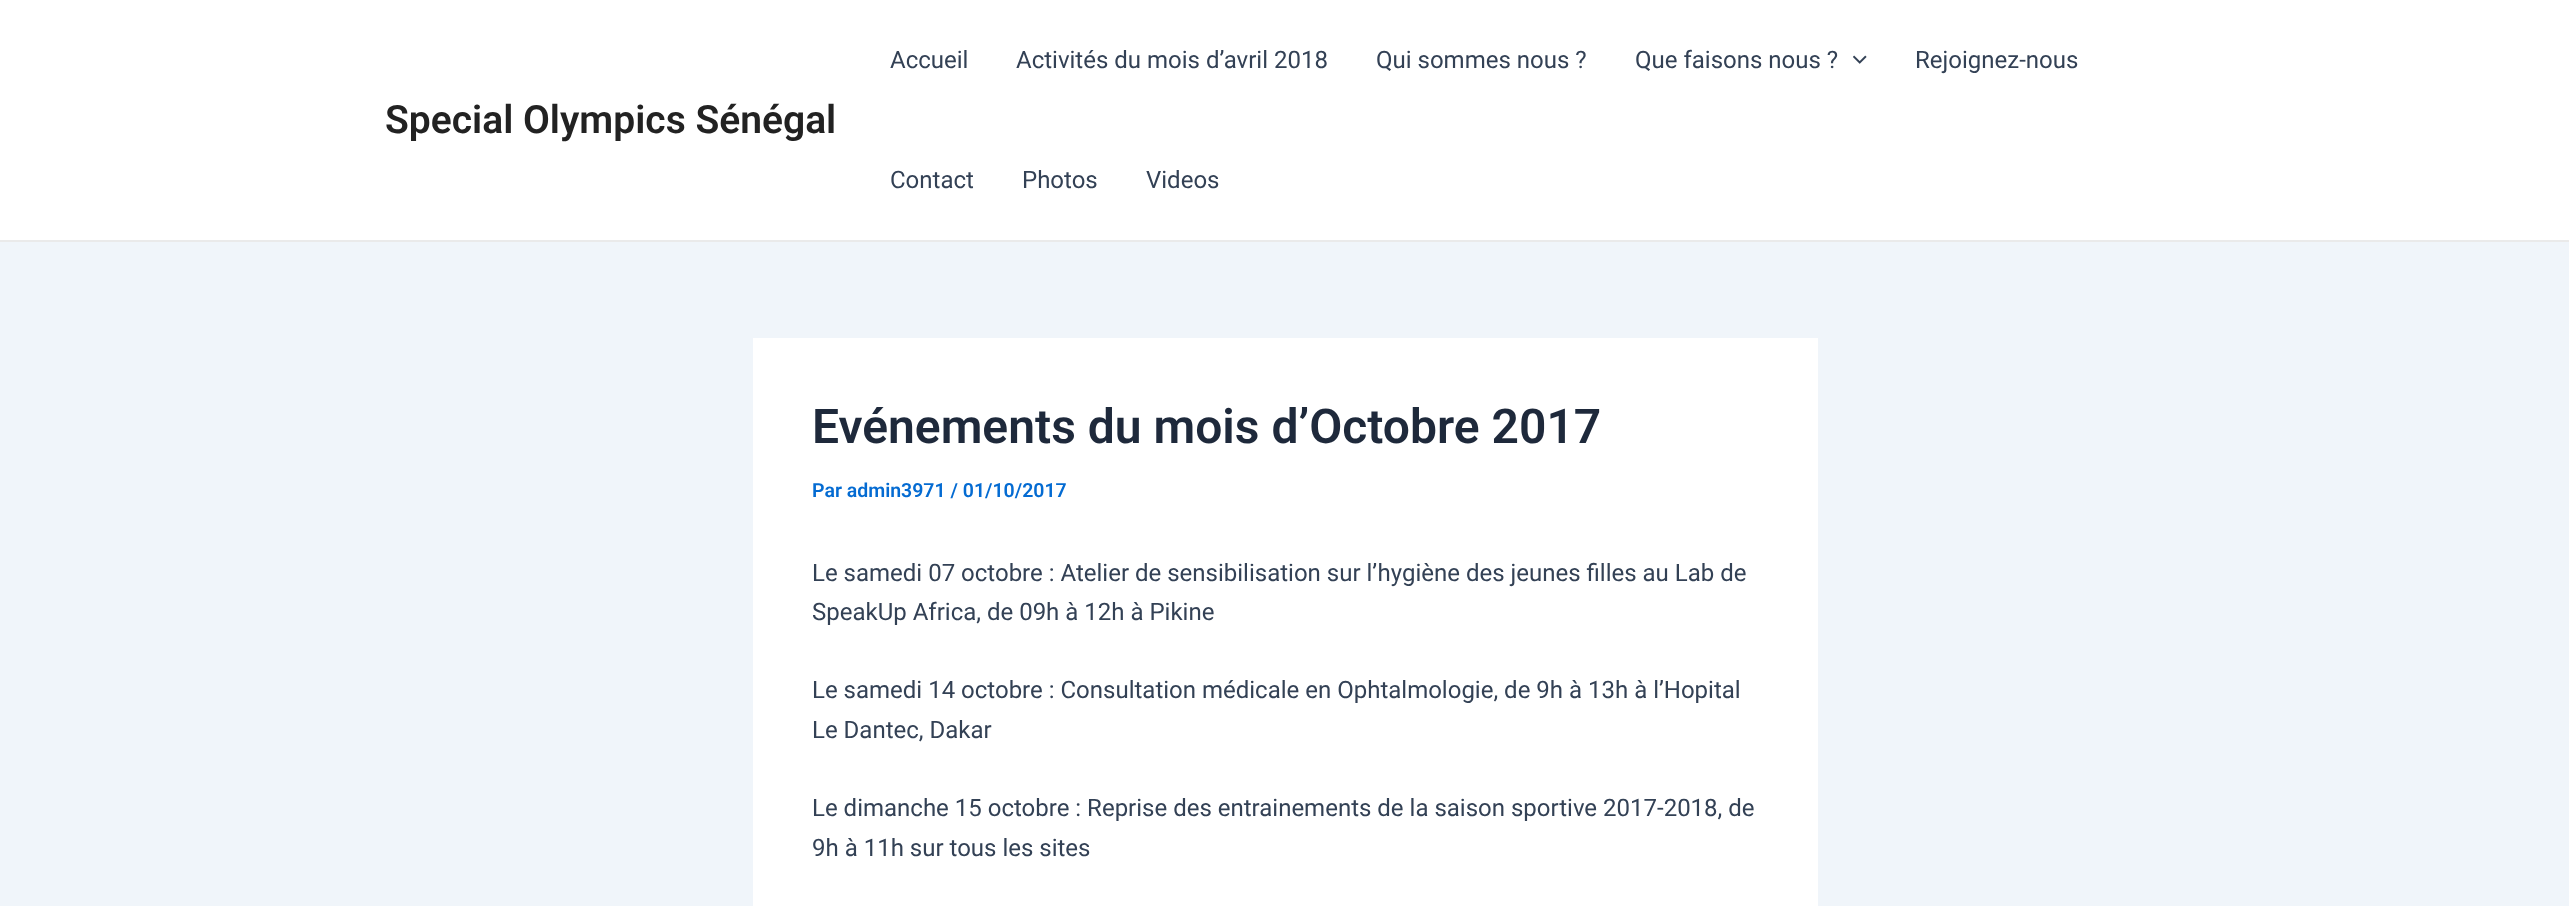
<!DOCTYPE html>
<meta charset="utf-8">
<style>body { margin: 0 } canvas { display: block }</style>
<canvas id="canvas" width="2569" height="906"></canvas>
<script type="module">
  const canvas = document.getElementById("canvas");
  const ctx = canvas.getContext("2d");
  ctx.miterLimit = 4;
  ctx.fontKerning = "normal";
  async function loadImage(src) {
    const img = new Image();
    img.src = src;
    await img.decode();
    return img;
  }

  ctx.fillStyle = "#f0f5fa";
  ctx.fillRect(0, 0, 2569, 906);
  ctx.fillStyle = "#ffffff";
  ctx.fillRect(0, 0, 2569, 240);
  ctx.fillStyle = "#eaeaea";
  ctx.fillRect(0, 240, 2569, 2);
  ctx.font = "600 39px Roboto";
  ctx.fillStyle = "#222222";
  ctx.fillText("Special Olympics Sénégal", 385, 133);
  ctx.font = "24px Roboto";
  ctx.fillStyle = "#334155";
  ctx.fillText("Accueil", 890, 68);
  ctx.fillText("Activités du mois d’avril 2018", 1016, 68);
  ctx.fillText("Qui sommes nous ?", 1376, 68);
  ctx.fillText("Que faisons nous ?", 1635, 68);
  ctx.drawImage(await loadImage("img1.png"), 1853, 55, 14, 9);
  ctx.fillText("Rejoignez-nous", 1915, 68);
  ctx.fillText("Contact", 890, 188);
  ctx.fillText("Photos", 1022, 188);
  ctx.fillText("Videos", 1146, 188);
  ctx.fillStyle = "#ffffff";
  ctx.fillRect(753, 338, 1065, 568);
  ctx.font = "600 48px Roboto";
  ctx.fillStyle = "#1e293b";
  ctx.fillText("Evénements du mois d’Octobre 2017", 812, 443);
  ctx.font = "600 19.5px Roboto";
  ctx.fillStyle = "#046bd2";
  ctx.fillText("Par admin3971 / 01/10/2017", 812, 497);
  ctx.font = "24px Roboto";
  ctx.fillStyle = "#334155";
  ctx.fillText("Le samedi 07 octobre : Atelier de sensibilisation sur l’hygiène des jeunes filles au Lab de", 812, 581);
  ctx.fillText("SpeakUp Africa, de 09h à 12h à Pikine", 812, 620);
  ctx.fillText("Le samedi 14 octobre : Consultation médicale en Ophtalmologie, de 9h à 13h à l’Hopital", 812, 698);
  ctx.fillText("Le Dantec, Dakar", 812, 738);
  ctx.fillText("Le dimanche 15 octobre : Reprise des entrainements de la saison sportive 2017-2018, de", 812, 816);
  ctx.fillText("9h à 11h sur tous les sites", 812, 856);
</script>
